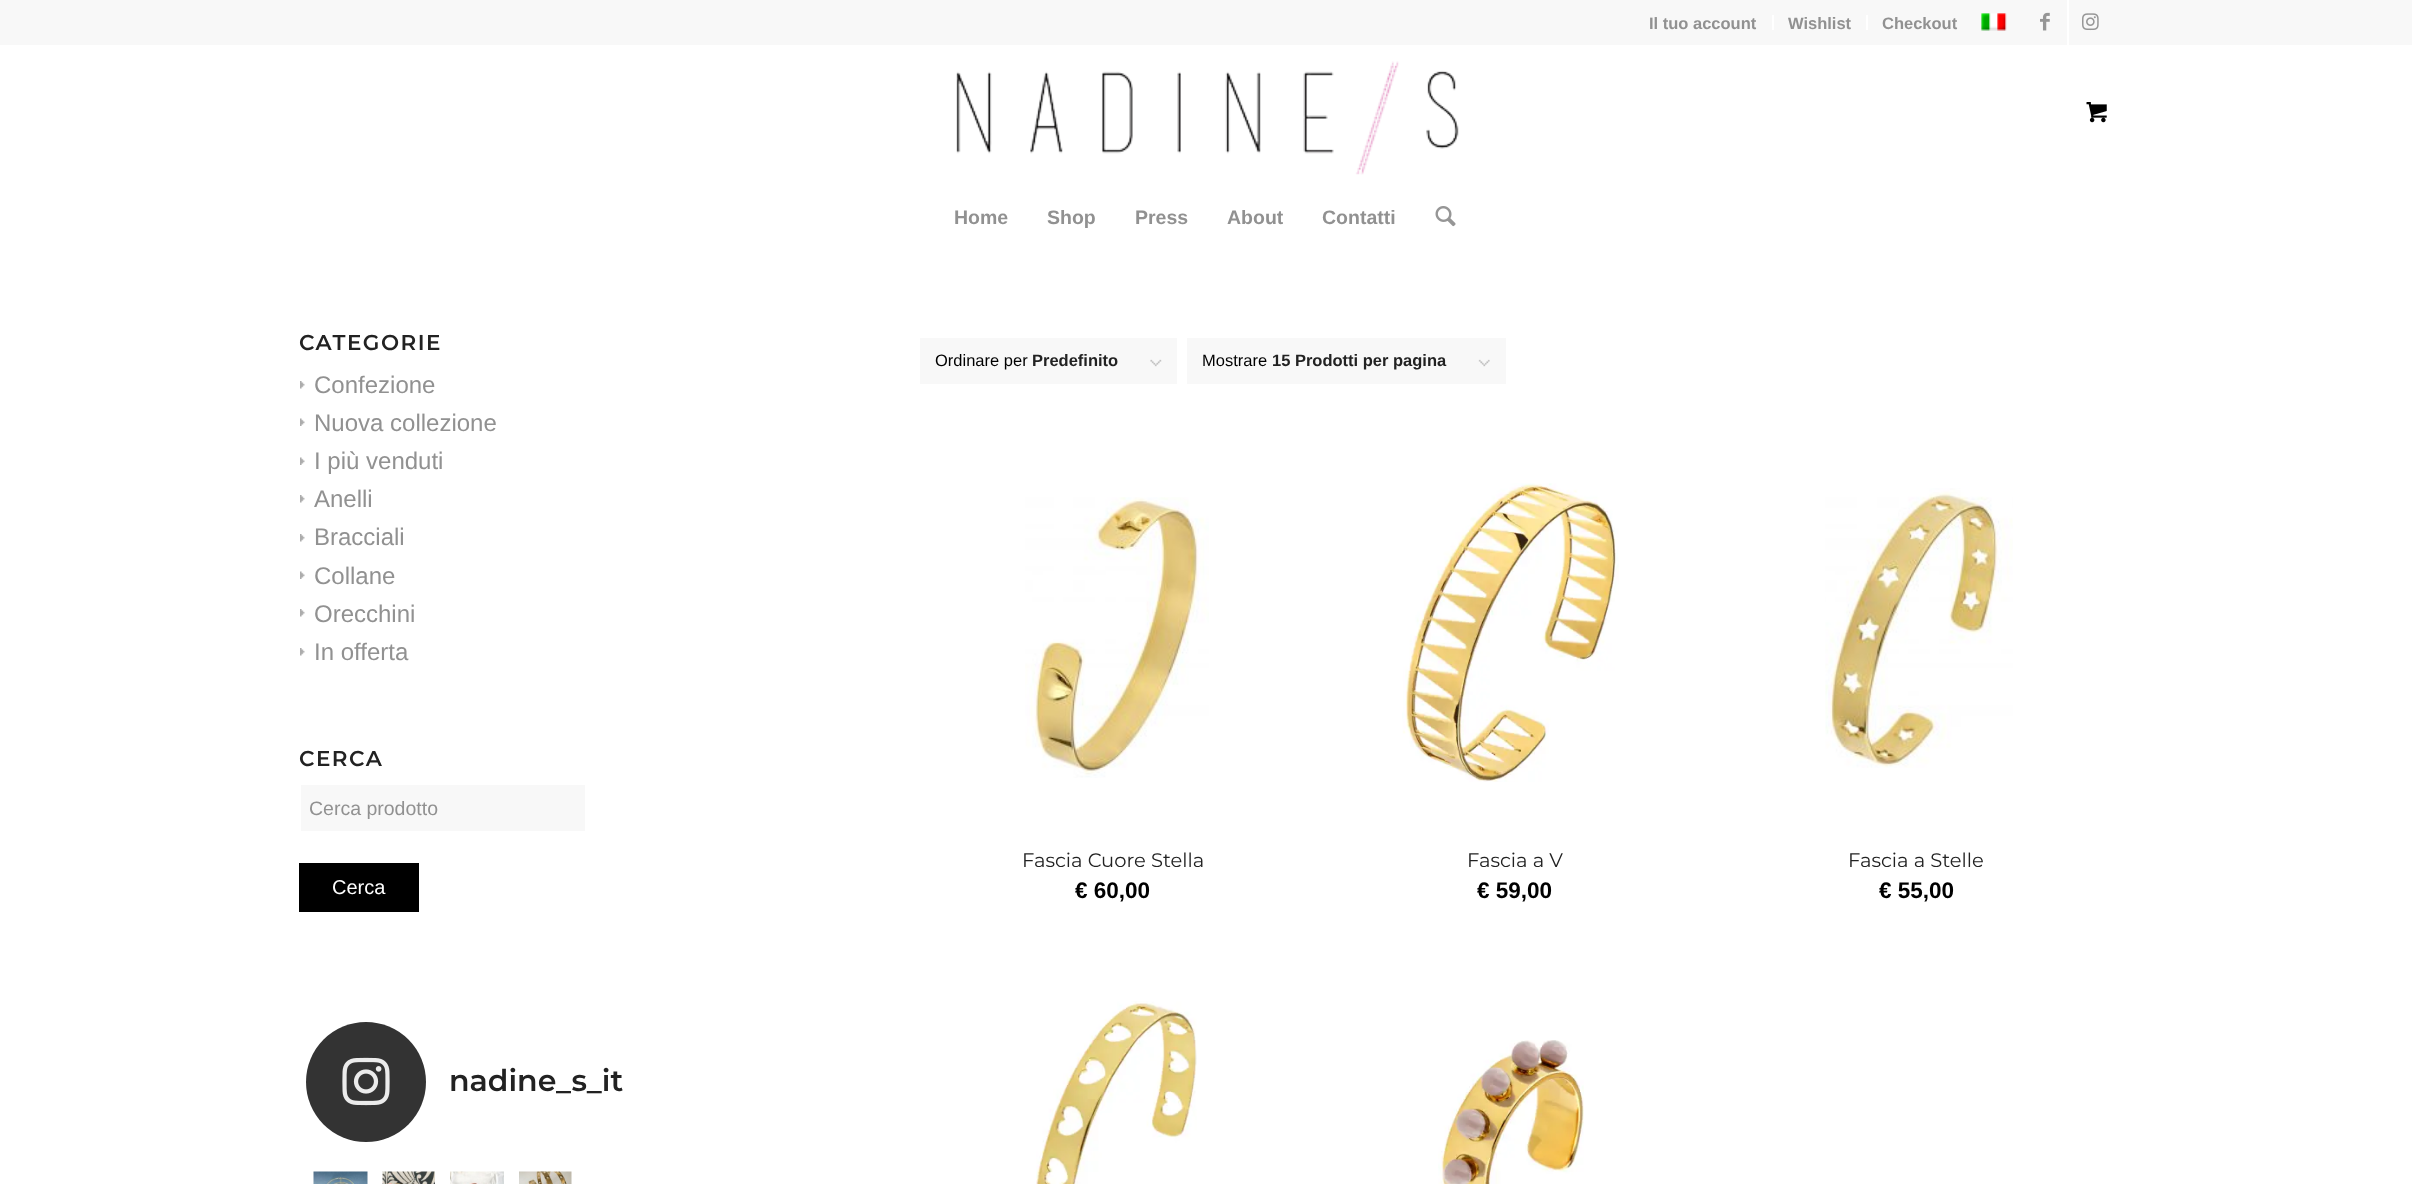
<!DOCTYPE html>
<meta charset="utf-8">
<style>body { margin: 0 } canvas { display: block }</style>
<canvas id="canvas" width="2412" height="1184"></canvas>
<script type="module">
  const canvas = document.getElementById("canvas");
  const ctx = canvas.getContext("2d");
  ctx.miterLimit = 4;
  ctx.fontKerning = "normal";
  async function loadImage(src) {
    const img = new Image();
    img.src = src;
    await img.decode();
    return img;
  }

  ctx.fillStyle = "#ffffff";
  ctx.fillRect(0, 0, 2412, 1184);
  ctx.fillStyle = "#f8f8f8";
  ctx.fillRect(0, 0, 2412, 45);
  ctx.fillStyle = "#ffffff";
  ctx.fillRect(1772, 15, 2, 15);
  ctx.font = "bold 16.5px Liberation Sans";
  ctx.fillStyle = "#919191";
  ctx.fillText("Il tuo account", 1649, 29);
  ctx.fillStyle = "#ffffff";
  ctx.fillRect(1866, 15, 2, 15);
  ctx.fillStyle = "#919191";
  ctx.fillText("Wishlist", 1788, 29);
  ctx.fillText("Checkout", 1882, 29);
  ctx.drawImage(await loadImage("img1.png"), 1981, 13, 26, 18);
  ctx.fillStyle = "#ffffff";
  ctx.fillRect(2067, 0, 2, 45);
  ctx.drawImage(await loadImage("img2.png"), 2040, 12, 10, 19);
  ctx.drawImage(await loadImage("img3.png"), 2082, 13, 17, 18);
  ctx.drawImage(await loadImage("img4.png"), 956, 61, 503, 114);
  ctx.drawImage(await loadImage("img5.png"), 2086, 102, 21, 21);
  ctx.font = "bold 19.5px Liberation Sans";
  ctx.fillStyle = "#919191";
  ctx.fillText("Home", 954, 224);
  ctx.fillText("Shop", 1047, 224);
  ctx.fillText("Press", 1135, 224);
  ctx.fillText("About", 1227, 224);
  ctx.fillText("Contatti", 1322, 224);
  ctx.drawImage(await loadImage("img6.png"), 1435, 206, 21, 21);
  ctx.letterSpacing = "1.5px";
  ctx.font = "600 21.5px Montserrat";
  ctx.fillStyle = "#222222";
  ctx.fillText("CATEGORIE", 299, 350);
  ctx.drawImage(await loadImage("img7.png"), 300, 381, 5, 8);
  ctx.letterSpacing = "0px";
  ctx.font = "24px Liberation Sans";
  ctx.fillStyle = "#919191";
  ctx.fillText("Confezione", 314, 393);
  ctx.drawImage(await loadImage("img8.png"), 300, 418, 5, 8);
  ctx.fillText("Nuova collezione", 314, 431);
  ctx.drawImage(await loadImage("img8.png"), 300, 457, 5, 8);
  ctx.fillText("I più venduti", 314, 469);
  ctx.drawImage(await loadImage("img7.png"), 300, 495, 5, 8);
  ctx.fillText("Anelli", 314, 507);
  ctx.drawImage(await loadImage("img7.png"), 300, 534, 5, 8);
  ctx.fillText("Bracciali", 314, 545);
  ctx.drawImage(await loadImage("img8.png"), 300, 571, 5, 8);
  ctx.fillText("Collane", 314, 584);
  ctx.drawImage(await loadImage("img7.png"), 300, 609, 5, 8);
  ctx.fillText("Orecchini", 314, 622);
  ctx.drawImage(await loadImage("img7.png"), 300, 648, 5, 8);
  ctx.fillText("In offerta", 314, 660);
  ctx.letterSpacing = "1.5px";
  ctx.font = "600 21.5px Montserrat";
  ctx.fillStyle = "#222222";
  ctx.fillText("CERCA", 299, 766);
  ctx.fillStyle = "#f8f8f8";
  ctx.fillRect(301, 785, 284, 46);
  ctx.letterSpacing = "0px";
  ctx.font = "19.5px Liberation Sans";
  ctx.fillStyle = "#919191";
  ctx.fillText("Cerca prodotto", 309, 815);
  ctx.fillStyle = "#000000";
  ctx.fillRect(299, 863, 120, 49);
  ctx.font = "20px Liberation Sans";
  ctx.fillStyle = "#ffffff";
  ctx.fillText("Cerca", 332, 894);
  ctx.fillStyle = "#333333";
  ctx.beginPath();
  ctx.arc(366, 1082, 60, 0, Math.PI * 2);
  ctx.fill();
  ctx.drawImage(await loadImage("img9.png"), 342, 1057, 48, 49);
  ctx.font = "600 30px Montserrat";
  ctx.fillStyle = "#222222";
  ctx.fillText("nadine_s_it", 449, 1091);
  ctx.drawImage(await loadImage("img10.png"), 313, 1171, 55, 13);
  ctx.drawImage(await loadImage("img11.png"), 382, 1171, 53, 13);
  ctx.drawImage(await loadImage("img12.png"), 450, 1171, 54, 13);
  ctx.drawImage(await loadImage("img13.png"), 519, 1171, 53, 13);
  ctx.fillStyle = "#f8f8f8";
  ctx.fillRect(920, 338, 257, 46);
  ctx.drawImage(await loadImage("img14.png"), 1150, 359, 12, 8);
  ctx.font = "16.5px Liberation Sans";
  ctx.fillStyle = "#000000";
  ctx.fillText("Ordinare per", 935, 366);
  ctx.font = "bold 16.5px Liberation Sans";
  ctx.fillStyle = "#222222";
  ctx.fillText("Predefinito", 1032, 366);
  ctx.fillStyle = "#f8f8f8";
  ctx.fillRect(1187, 338, 319, 46);
  ctx.drawImage(await loadImage("img15.png"), 1478, 359, 12, 8);
  ctx.font = "16.5px Liberation Sans";
  ctx.fillStyle = "#000000";
  ctx.fillText("Mostrare", 1202, 366);
  ctx.font = "bold 16.5px Liberation Sans";
  ctx.fillStyle = "#222222";
  ctx.fillText("15 Prodotti per pagina", 1272, 366);
  ctx.drawImage(await loadImage("img16.png"), 1025, 497, 184, 281);
  ctx.font = "19.5px Montserrat";
  ctx.fillText("Fascia Cuore Stella", 1022, 867);
  ctx.font = "bold 22.5px Liberation Sans";
  ctx.fillStyle = "#000000";
  ctx.fillText("€ 60,00", 1075, 898);
  ctx.drawImage(await loadImage("img17.png"), 1402, 483, 217, 299);
  ctx.font = "19.5px Montserrat";
  ctx.fillStyle = "#222222";
  ctx.fillText("Fascia a V", 1467, 867);
  ctx.font = "bold 22.5px Liberation Sans";
  ctx.fillStyle = "#000000";
  ctx.fillText("€ 59,00", 1477, 898);
  ctx.drawImage(await loadImage("img18.png"), 1825, 488, 188, 280);
  ctx.font = "19.5px Montserrat";
  ctx.fillStyle = "#222222";
  ctx.fillText("Fascia a Stelle", 1848, 867);
  ctx.font = "bold 22.5px Liberation Sans";
  ctx.fillStyle = "#000000";
  ctx.fillText("€ 55,00", 1879, 898);
  ctx.drawImage(await loadImage("img19.png"), 1036, 1001, 161, 183);
  ctx.drawImage(await loadImage("img20.png"), 1438, 1040, 146, 144);
</script>
